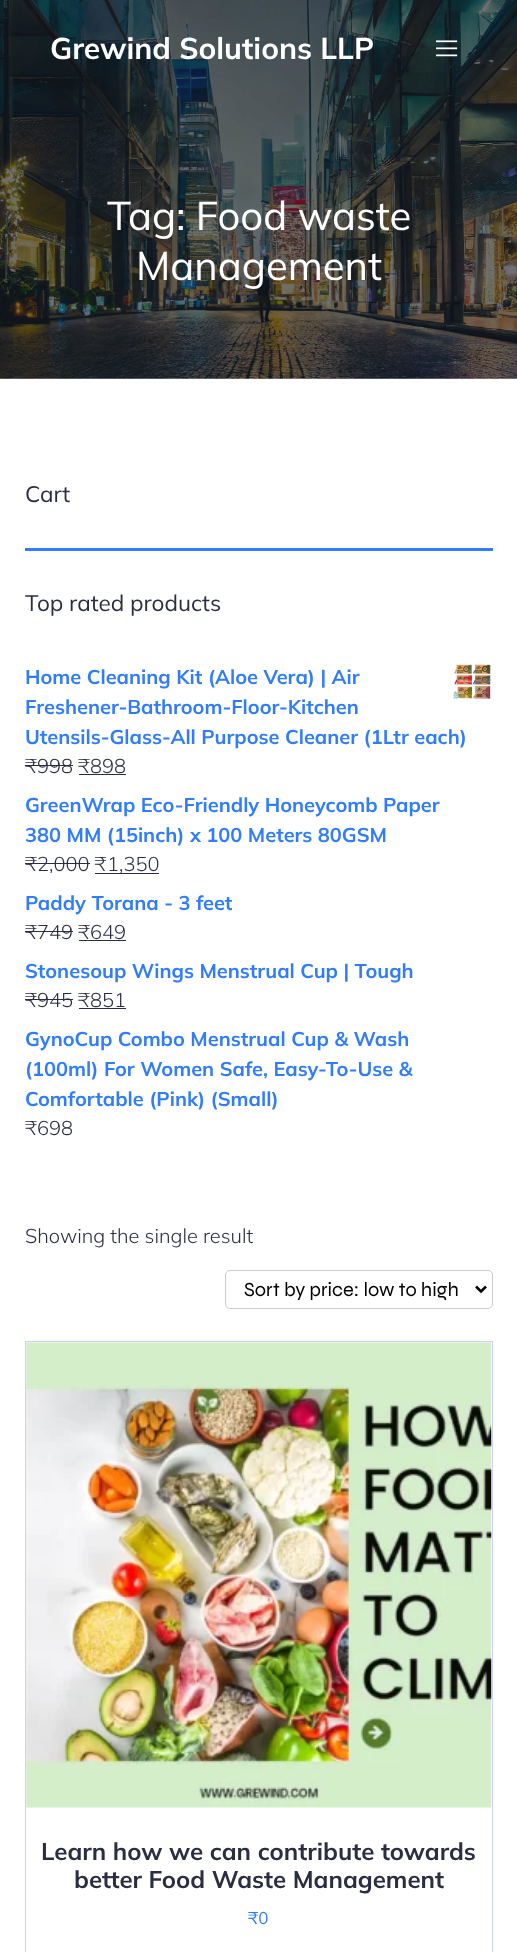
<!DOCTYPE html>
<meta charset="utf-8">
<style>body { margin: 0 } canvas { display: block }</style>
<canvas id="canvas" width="517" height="1952"></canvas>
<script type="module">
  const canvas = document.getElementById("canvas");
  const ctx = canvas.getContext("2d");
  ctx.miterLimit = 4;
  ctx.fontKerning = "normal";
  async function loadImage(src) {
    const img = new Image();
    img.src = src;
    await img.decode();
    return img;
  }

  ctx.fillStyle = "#ffffff";
  ctx.fillRect(0, 0, 517, 1952);
  ctx.drawImage(await loadImage("img2.png"), 0, 0, 517, 379);
  ctx.font = "bold 30px Mulish";
  ctx.fillText("Grewind Solutions LLP", 50, 59);
  ctx.drawImage(await loadImage("img1.png"), 436, 40, 22, 17);
  ctx.font = "40px Mulish";
  ctx.fillText("Tag: Food waste", 107, 230);
  ctx.fillText("Management", 136, 280);
  ctx.font = "22.5px Mulish";
  ctx.fillStyle = "#2b2d42";
  ctx.fillText("Cart", 25, 502);
  ctx.fillStyle = "#2f7cff";
  ctx.fillRect(25, 548, 468, 3);
  ctx.fillStyle = "#2b2d42";
  ctx.fillText("Top rated products", 25, 611);
  ctx.font = "bold 20px Mulish";
  ctx.fillStyle = "#2f7cff";
  ctx.fillText("Home Cleaning Kit (Aloe Vera) | Air", 25, 684);
  ctx.drawImage(await loadImage("img3.png"), 453, 664, 38, 36);
  ctx.fillText("Freshener-Bathroom-Floor-Kitchen", 25, 714);
  ctx.fillText("Utensils-Glass-All Purpose Cleaner (1Ltr each)", 25, 744);
  ctx.font = "300 20px Mulish";
  ctx.fillStyle = "#2b2d42";
  ctx.fillText("₹998 ₹898", 25, 773);
  ctx.fillRect(25, 765, 48, 1);
  ctx.fillRect(79, 774, 47, 1);
  ctx.font = "bold 20px Mulish";
  ctx.fillStyle = "#2f7cff";
  ctx.fillText("GreenWrap Eco-Friendly Honeycomb Paper", 25, 812);
  ctx.fillText("380 MM (15inch) x 100 Meters 80GSM", 25, 842);
  ctx.font = "300 20px Mulish";
  ctx.fillStyle = "#2b2d42";
  ctx.fillText("₹2,000 ₹", 25, 871);
  ctx.fillRect(25, 863, 65, 1);
  ctx.fillRect(95, 873, 64, 1);
  ctx.fillText("1,350", 107, 871);
  ctx.font = "bold 20px Mulish";
  ctx.fillStyle = "#2f7cff";
  ctx.fillText("Paddy Torana - 3 feet", 25, 910);
  ctx.font = "300 20px Mulish";
  ctx.fillStyle = "#2b2d42";
  ctx.fillText("₹749 ₹649", 25, 939);
  ctx.fillRect(25, 931, 48, 1);
  ctx.fillRect(79, 940, 47, 1);
  ctx.font = "bold 20px Mulish";
  ctx.fillStyle = "#2f7cff";
  ctx.fillText("Stonesoup Wings Menstrual Cup | Tough", 25, 978);
  ctx.font = "300 20px Mulish";
  ctx.fillStyle = "#2b2d42";
  ctx.fillText("₹945 ₹851", 25, 1007);
  ctx.fillRect(25, 999, 48, 1);
  ctx.fillRect(79, 1008, 47, 1);
  ctx.font = "bold 20px Mulish";
  ctx.fillStyle = "#2f7cff";
  ctx.fillText("GynoCup Combo Menstrual Cup & Wash", 25, 1046);
  ctx.fillText("(100ml) For Women Safe, Easy-To-Use &", 25, 1076);
  ctx.fillText("Comfortable (Pink) (Small)", 25, 1106);
  ctx.font = "300 20px Mulish";
  ctx.fillStyle = "#2b2d42";
  ctx.fillText("₹698", 25, 1135);
  ctx.fillText("Showing the single result", 25, 1243);
  ctx.beginPath();
  ctx.roundRect(225.5, 1270.5, 267, 38, 4.5);
  ctx.strokeStyle = "#cccccc";
  ctx.stroke();
  ctx.beginPath();
  ctx.moveTo(476, 1286.5);
  ctx.lineTo(481, 1291.5);
  ctx.lineTo(486, 1286.5);
  ctx.strokeStyle = "#000000";
  ctx.lineWidth = 2.5;
  ctx.stroke();
  ctx.font = "20px Syne";
  ctx.fillStyle = "#000000";
  ctx.fillText("Sort by price: low to high", 244, 1296);
  ctx.strokeStyle = "#ccd0f5";
  ctx.lineWidth = 1;
  ctx.strokeRect(25.5, 1341.5, 467, 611);
  ctx.drawImage(await loadImage("img4.png"), 26, 1342, 466, 466);
  ctx.font = "bold 24px Mulish";
  ctx.fillStyle = "#2b2d42";
  ctx.fillText("Learn how we can contribute towards", 41, 1860);
  ctx.fillText("better Food Waste Management", 74, 1888);
  ctx.font = "17px Mulish";
  ctx.fillStyle = "#2f7cff";
  ctx.fillText("₹0", 248, 1924);
</script>
